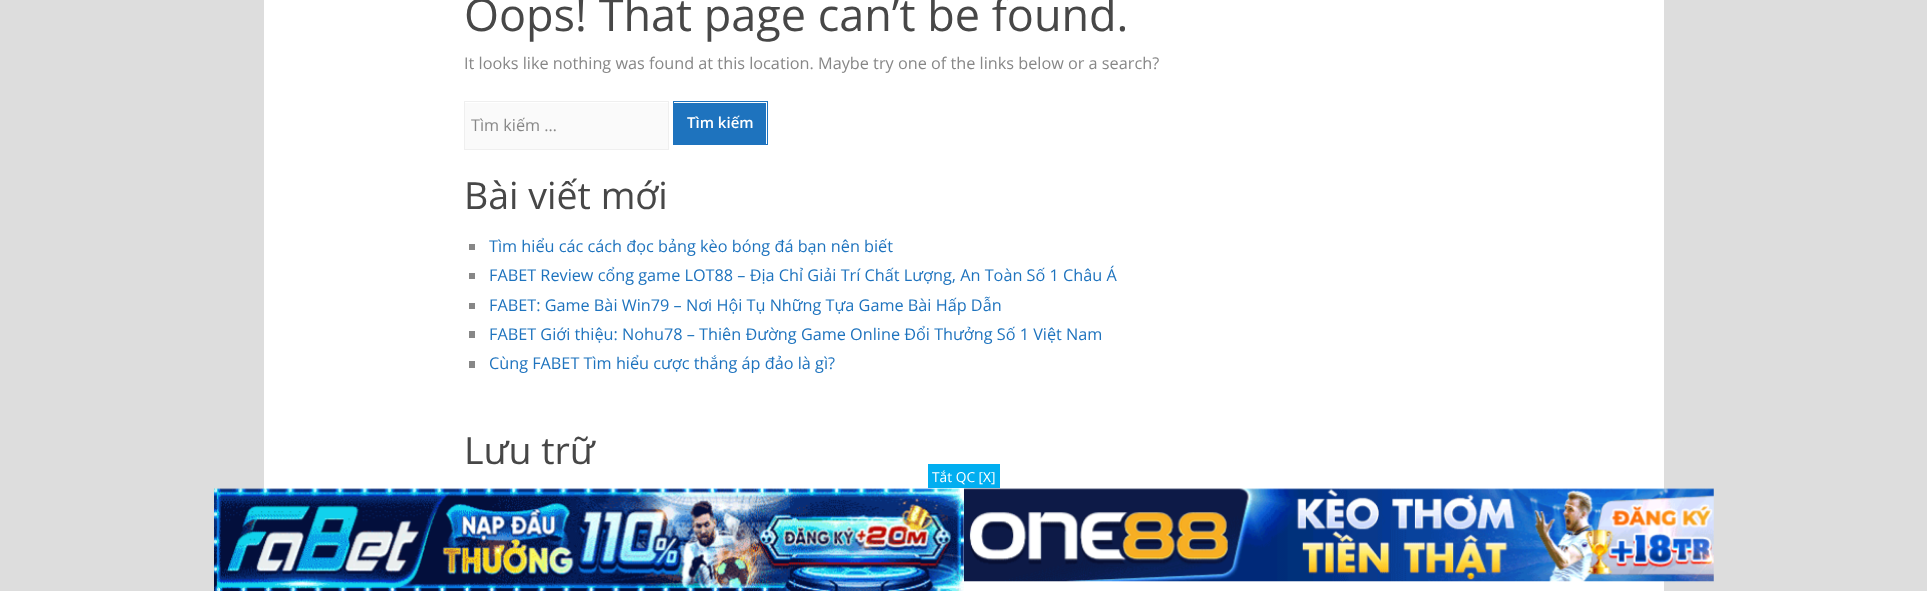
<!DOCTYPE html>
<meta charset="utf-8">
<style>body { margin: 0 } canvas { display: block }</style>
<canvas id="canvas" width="1927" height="591"></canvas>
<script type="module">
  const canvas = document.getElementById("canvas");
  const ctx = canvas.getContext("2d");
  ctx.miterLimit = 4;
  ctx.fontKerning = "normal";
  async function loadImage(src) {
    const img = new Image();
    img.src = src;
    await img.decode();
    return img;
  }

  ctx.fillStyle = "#dddddd";
  ctx.fillRect(0, 0, 1927, 591);
  ctx.fillStyle = "#ffffff";
  ctx.fillRect(264, 0, 1400, 591);
  ctx.font = "45px Open Sans";
  ctx.fillStyle = "#474747";
  ctx.fillText("Oops! That page can’t be found.", 464, 31);
  ctx.font = "16.25px Open Sans";
  ctx.fillStyle = "#878787";
  ctx.fillText("It looks like nothing was found at this location. Maybe try one of the links below or a search?", 464, 69);
  ctx.fillStyle = "#fafafa";
  ctx.fillRect(465, 103, 203, 46);
  ctx.strokeStyle = "#efefef";
  ctx.strokeRect(464.5, 101.5, 204, 48);
  ctx.fillStyle = "#878787";
  ctx.fillText("Tìm kiếm …", 471, 131);
  ctx.fillStyle = "#1e73be";
  ctx.fillRect(674, 103, 92, 41);
  ctx.strokeStyle = "#1e73be";
  ctx.strokeRect(673.5, 101.5, 94, 43);
  ctx.font = "600 15px Open Sans";
  ctx.fillStyle = "#ffffff";
  ctx.fillText("Tìm kiếm", 687, 128);
  ctx.font = "37.5px Open Sans";
  ctx.fillStyle = "#474747";
  ctx.fillText("Bài viết mới", 464, 209);
  ctx.fillStyle = "#878787";
  ctx.fillRect(469, 244, 6, 6);
  ctx.font = "16.25px Open Sans";
  ctx.fillStyle = "#1e73be";
  ctx.fillText("Tìm hiểu các cách đọc bảng kèo bóng đá bạn nên biết", 489, 252);
  ctx.fillStyle = "#878787";
  ctx.fillRect(469, 273, 6, 6);
  ctx.fillStyle = "#1e73be";
  ctx.fillText("FABET Review cổng game LOT88 – Địa Chỉ Giải Trí Chất Lượng, An Toàn Số 1 Châu Á", 489, 281);
  ctx.fillStyle = "#878787";
  ctx.fillRect(469, 303, 6, 6);
  ctx.fillStyle = "#1e73be";
  ctx.fillText("FABET: Game Bài Win79 – Nơi Hội Tụ Những Tựa Game Bài Hấp Dẫn", 489, 311);
  ctx.fillStyle = "#878787";
  ctx.fillRect(469, 331, 6, 7);
  ctx.fillStyle = "#1e73be";
  ctx.fillText("FABET Giới thiệu: Nohu78 – Thiên Đường Game Online Đổi Thưởng Số 1 Việt Nam", 489, 340);
  ctx.fillStyle = "#878787";
  ctx.fillRect(469, 361, 6, 7);
  ctx.fillStyle = "#1e73be";
  ctx.fillText("Cùng FABET Tìm hiểu cược thắng áp đảo là gì?", 489, 369);
  ctx.font = "37.5px Open Sans";
  ctx.fillStyle = "#474747";
  ctx.fillText("Lưu trữ", 464, 464);
  ctx.strokeStyle = "#efefef";
  ctx.strokeRect(464.5, 531.5, 999, 48);
  ctx.fillStyle = "#01aef0";
  ctx.fillRect(928, 464, 72, 24);
  ctx.font = "13.75px Open Sans";
  ctx.fillStyle = "#ffffff";
  ctx.fillText("Tắt QC [X]", 932, 482);
  ctx.drawImage(await loadImage("img1.png"), 214, 488, 750, 103);
  ctx.drawImage(await loadImage("img2.png"), 964, 488, 750, 94);
</script>
